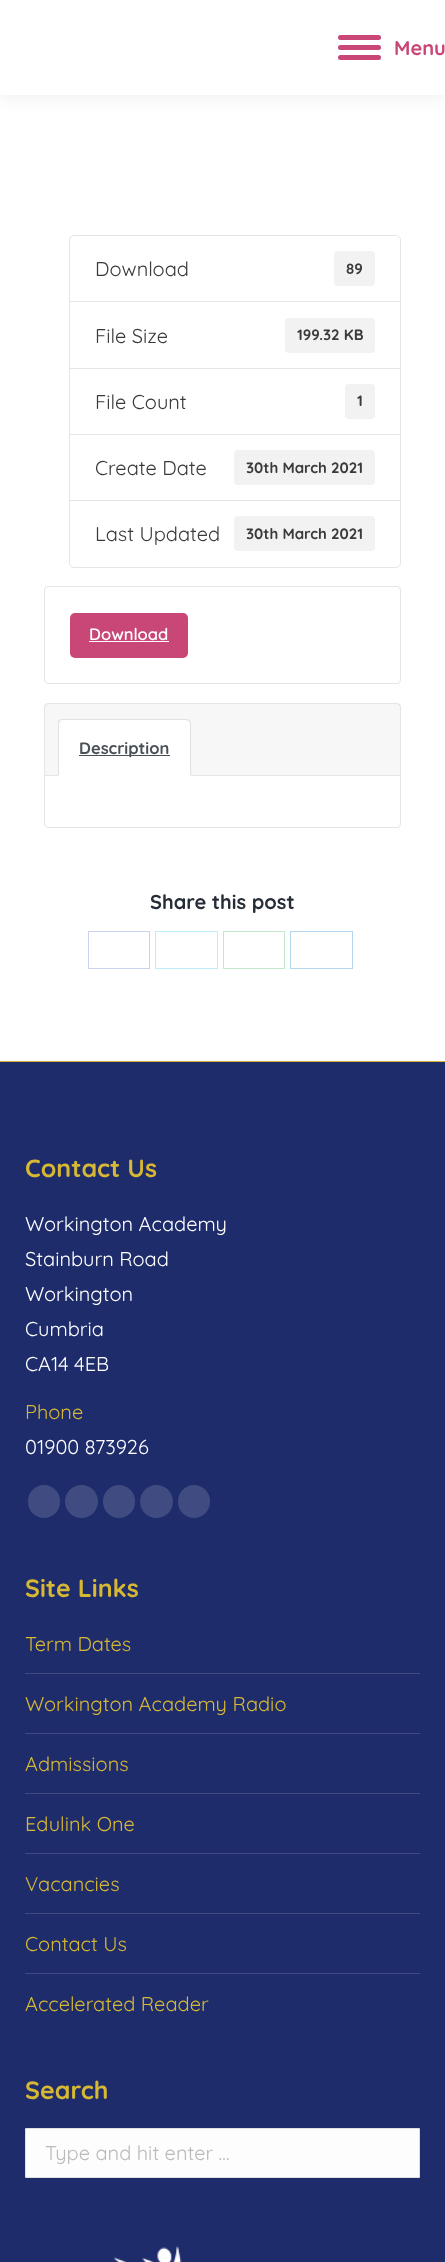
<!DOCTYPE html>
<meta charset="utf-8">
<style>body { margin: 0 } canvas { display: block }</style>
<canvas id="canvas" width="445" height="2262"></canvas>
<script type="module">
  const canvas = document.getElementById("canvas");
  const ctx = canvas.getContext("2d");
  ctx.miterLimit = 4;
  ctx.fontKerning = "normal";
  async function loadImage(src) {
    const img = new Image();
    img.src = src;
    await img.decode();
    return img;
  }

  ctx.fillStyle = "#ffffff";
  ctx.fillRect(0, 0, 445, 2262);
  ctx.fillStyle = "rgba(0, 0, 0, 0.07)";
  ctx.filter = "blur(9.5px)";
  ctx.beginPath();
  ctx.rect(-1, -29, 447, 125);
  ctx.fill();
  ctx.filter = "none";
  ctx.fillStyle = "#ffffff";
  ctx.fillRect(0, 0, 445, 95);
  ctx.fillStyle = "#c94777";
  ctx.beginPath();
  ctx.roundRect(338, 35, 43, 5, 2.5);
  ctx.fill();
  ctx.beginPath();
  ctx.roundRect(338, 45, 43, 5, 2.5);
  ctx.fill();
  ctx.beginPath();
  ctx.roundRect(338, 55, 43, 5, 2.5);
  ctx.fill();
  ctx.font = "bold 20px Quicksand";
  ctx.fillText("Menu", 394, 55);
  ctx.beginPath();
  ctx.roundRect(69.5, 235.5, 331, 67, [4.5, 4.5, 0, 0]);
  ctx.strokeStyle = "#e5e5e5";
  ctx.stroke();
  ctx.font = "20px Quicksand";
  ctx.fillStyle = "#3a3a3a";
  ctx.fillText("Download", 95, 276);
  ctx.fillStyle = "#f2f2f2";
  ctx.beginPath();
  ctx.roundRect(334, 251, 41, 35, 4);
  ctx.fill();
  ctx.font = "bold 15px Quicksand";
  ctx.fillStyle = "#3a3a3a";
  ctx.fillText("89", 346, 274);
  ctx.fillStyle = "#ffffff";
  ctx.fillRect(70, 302, 330, 1);
  ctx.strokeRect(69.5, 301.5, 331, 67);
  ctx.font = "20px Quicksand";
  ctx.fillStyle = "#3a3a3a";
  ctx.fillText("File Size", 95, 343);
  ctx.fillStyle = "#f2f2f2";
  ctx.beginPath();
  ctx.roundRect(285, 318, 90, 35, 4);
  ctx.fill();
  ctx.font = "bold 15px Quicksand";
  ctx.fillStyle = "#3a3a3a";
  ctx.fillText("199.32 KB", 297, 340);
  ctx.strokeRect(69.5, 368.5, 331, 66);
  ctx.font = "20px Quicksand";
  ctx.fillText("File Count", 95, 409);
  ctx.fillStyle = "#f2f2f2";
  ctx.beginPath();
  ctx.roundRect(345, 384, 30, 35, 4);
  ctx.fill();
  ctx.font = "bold 15px Quicksand";
  ctx.fillStyle = "#3a3a3a";
  ctx.fillText("1", 357, 406);
  ctx.strokeRect(69.5, 434.5, 331, 66);
  ctx.font = "20px Quicksand";
  ctx.fillText("Create Date", 95, 475);
  ctx.fillStyle = "#f2f2f2";
  ctx.beginPath();
  ctx.roundRect(234, 450, 141, 35, 4);
  ctx.fill();
  ctx.font = "bold 15px Quicksand";
  ctx.fillStyle = "#3a3a3a";
  ctx.fillText("30th March 2021", 246, 473);
  ctx.fillStyle = "#ffffff";
  ctx.beginPath();
  ctx.roundRect(69.5, 500.5, 331, 67, [0, 0, 4.5, 4.5]);
  ctx.fill();
  ctx.stroke();
  ctx.font = "20px Quicksand";
  ctx.fillStyle = "#3a3a3a";
  ctx.fillText("Last Updated", 95, 541);
  ctx.fillStyle = "#f2f2f2";
  ctx.beginPath();
  ctx.roundRect(234, 516, 141, 35, 4);
  ctx.fill();
  ctx.font = "bold 15px Quicksand";
  ctx.fillStyle = "#3a3a3a";
  ctx.fillText("30th March 2021", 246, 539);
  ctx.beginPath();
  ctx.roundRect(44.5, 586.5, 356, 97, 3.5);
  ctx.stroke();
  ctx.fillStyle = "#c84777";
  ctx.beginPath();
  ctx.roundRect(70, 613, 118, 45, 5);
  ctx.fill();
  ctx.font = "600 16.5px Quicksand";
  ctx.fillStyle = "#ffffff";
  ctx.fillText("Download", 89, 640);
  ctx.fillRect(89, 641, 80, 1);
  ctx.beginPath();
  ctx.roundRect(44.5, 703.5, 356, 124, 3.5);
  ctx.stroke();
  ctx.fillStyle = "rgba(0, 0, 0, 0.03)";
  ctx.fillRect(45, 704, 355, 71);
  ctx.fillStyle = "#e5e5e5";
  ctx.fillRect(45, 775, 355, 1);
  ctx.fillStyle = "#ffffff";
  ctx.beginPath();
  ctx.roundRect(58, 719, 133, 57, [5, 5, 0, 0]);
  ctx.fill();
  ctx.fillStyle = "#dee2e6";
  ctx.beginPath();
  ctx.moveTo(62, 719);
  ctx.bezierCurveTo(61, 719, 60, 720, 59, 720);
  ctx.lineTo(60, 721);
  ctx.lineTo(62, 720);
  ctx.lineTo(186, 720);
  ctx.lineTo(189, 721);
  ctx.lineTo(190, 720);
  ctx.bezierCurveTo(189, 720, 188, 719, 186, 719);
  ctx.closePath();
  ctx.fill();
  ctx.beginPath();
  ctx.moveTo(191, 776);
  ctx.lineTo(191, 724);
  ctx.bezierCurveTo(191, 722, 190, 721, 190, 720);
  ctx.lineTo(189, 721);
  ctx.lineTo(190, 724);
  ctx.lineTo(190, 775);
  ctx.closePath();
  ctx.fill();
  ctx.fillStyle = "#ffffff";
  ctx.beginPath();
  ctx.moveTo(191, 776);
  ctx.lineTo(190, 775);
  ctx.lineTo(59, 775);
  ctx.lineTo(58, 776);
  ctx.closePath();
  ctx.fill();
  ctx.fillStyle = "#dee2e6";
  ctx.beginPath();
  ctx.moveTo(59, 720);
  ctx.bezierCurveTo(58, 721, 58, 723, 58, 724);
  ctx.lineTo(58, 776);
  ctx.lineTo(59, 775);
  ctx.lineTo(59, 724);
  ctx.lineTo(60, 721);
  ctx.closePath();
  ctx.fill();
  ctx.fillStyle = "#495057";
  ctx.fillRect(79, 755, 91, 1);
  ctx.font = "bold 16.5px Quicksand";
  ctx.fillText("Description", 79, 754);
  ctx.font = "bold 20px Quicksand";
  ctx.fillStyle = "#262d37";
  ctx.fillText("Share this post", 150, 909);
  ctx.strokeStyle = "#c9d2ee";
  ctx.strokeRect(88.5, 931.5, 61, 37);
  ctx.strokeStyle = "#bfecf9";
  ctx.strokeRect(155.5, 931.5, 62, 37);
  ctx.strokeStyle = "#c3e9ca";
  ctx.strokeRect(223.5, 931.5, 61, 37);
  ctx.strokeStyle = "#b3d7ee";
  ctx.strokeRect(290.5, 931.5, 62, 37);
  ctx.fillStyle = "#1e2c6b";
  ctx.fillRect(0, 1062, 445, 1200);
  ctx.fillStyle = "#d6b834";
  ctx.fillRect(0, 1061, 445, 1);
  ctx.font = "bold 25px Quicksand";
  ctx.fillText("Contact Us", 25, 1177);
  ctx.font = "20px Quicksand";
  ctx.fillStyle = "#ffffff";
  ctx.fillText("Workington Academy", 25, 1231);
  ctx.fillText("Stainburn Road", 25, 1266);
  ctx.fillText("Workington", 25, 1301);
  ctx.fillText("Cumbria", 25, 1336);
  ctx.fillText("CA14 4EB", 25, 1371);
  ctx.fillStyle = "#d6b834";
  ctx.fillText("Phone", 25, 1419);
  ctx.fillStyle = "#ffffff";
  ctx.fillText("01900 873926", 25, 1454);
  ctx.fillStyle = "#404c81";
  ctx.beginPath();
  ctx.roundRect(28, 1485, 32, 33, 16);
  ctx.fill();
  ctx.beginPath();
  ctx.arc(81.5, 1501.5, 16.5, 0, Math.PI * 2);
  ctx.fill();
  ctx.beginPath();
  ctx.roundRect(103, 1485, 32, 33, 16);
  ctx.fill();
  ctx.beginPath();
  ctx.arc(156.5, 1501.5, 16.5, 0, Math.PI * 2);
  ctx.fill();
  ctx.beginPath();
  ctx.roundRect(178, 1485, 32, 33, 16);
  ctx.fill();
  ctx.font = "bold 25px Quicksand";
  ctx.fillStyle = "#d6b834";
  ctx.fillText("Site Links", 25, 1597);
  ctx.font = "20px Quicksand";
  ctx.fillText("Term Dates", 25, 1651);
  ctx.fillStyle = "#404c81";
  ctx.fillRect(25, 1673, 395, 1);
  ctx.fillStyle = "#d6b834";
  ctx.fillText("Workington Academy Radio", 25, 1711);
  ctx.fillStyle = "#404c81";
  ctx.fillRect(25, 1733, 395, 1);
  ctx.fillStyle = "#d6b834";
  ctx.fillText("Admissions", 25, 1771);
  ctx.fillStyle = "#404c81";
  ctx.fillRect(25, 1793, 395, 1);
  ctx.fillStyle = "#d6b834";
  ctx.fillText("Edulink One", 25, 1831);
  ctx.fillStyle = "#404c81";
  ctx.fillRect(25, 1853, 395, 1);
  ctx.fillStyle = "#d6b834";
  ctx.fillText("Vacancies", 25, 1891);
  ctx.fillStyle = "#404c81";
  ctx.fillRect(25, 1913, 395, 1);
  ctx.fillStyle = "#d6b834";
  ctx.fillText("Contact Us", 25, 1951);
  ctx.fillStyle = "#404c81";
  ctx.fillRect(25, 1973, 395, 1);
  ctx.fillStyle = "#d6b834";
  ctx.fillText("Accelerated Reader", 25, 2011);
  ctx.font = "bold 25px Quicksand";
  ctx.fillText("Search", 25, 2099);
  ctx.fillStyle = "#fdfdfd";
  ctx.beginPath();
  ctx.roundRect(25, 2128, 395, 50, 1);
  ctx.fill();
  ctx.strokeStyle = "rgba(51, 51, 51, 0.14)";
  ctx.strokeRect(25.5, 2128.5, 394, 49);
  ctx.font = "20px Quicksand";
  ctx.fillStyle = "#bababa";
  ctx.fillText("Type and hit enter …", 45, 2160);
  ctx.drawImage(await loadImage("img1.png"), 113, 2246, 69, 16);
</script>
